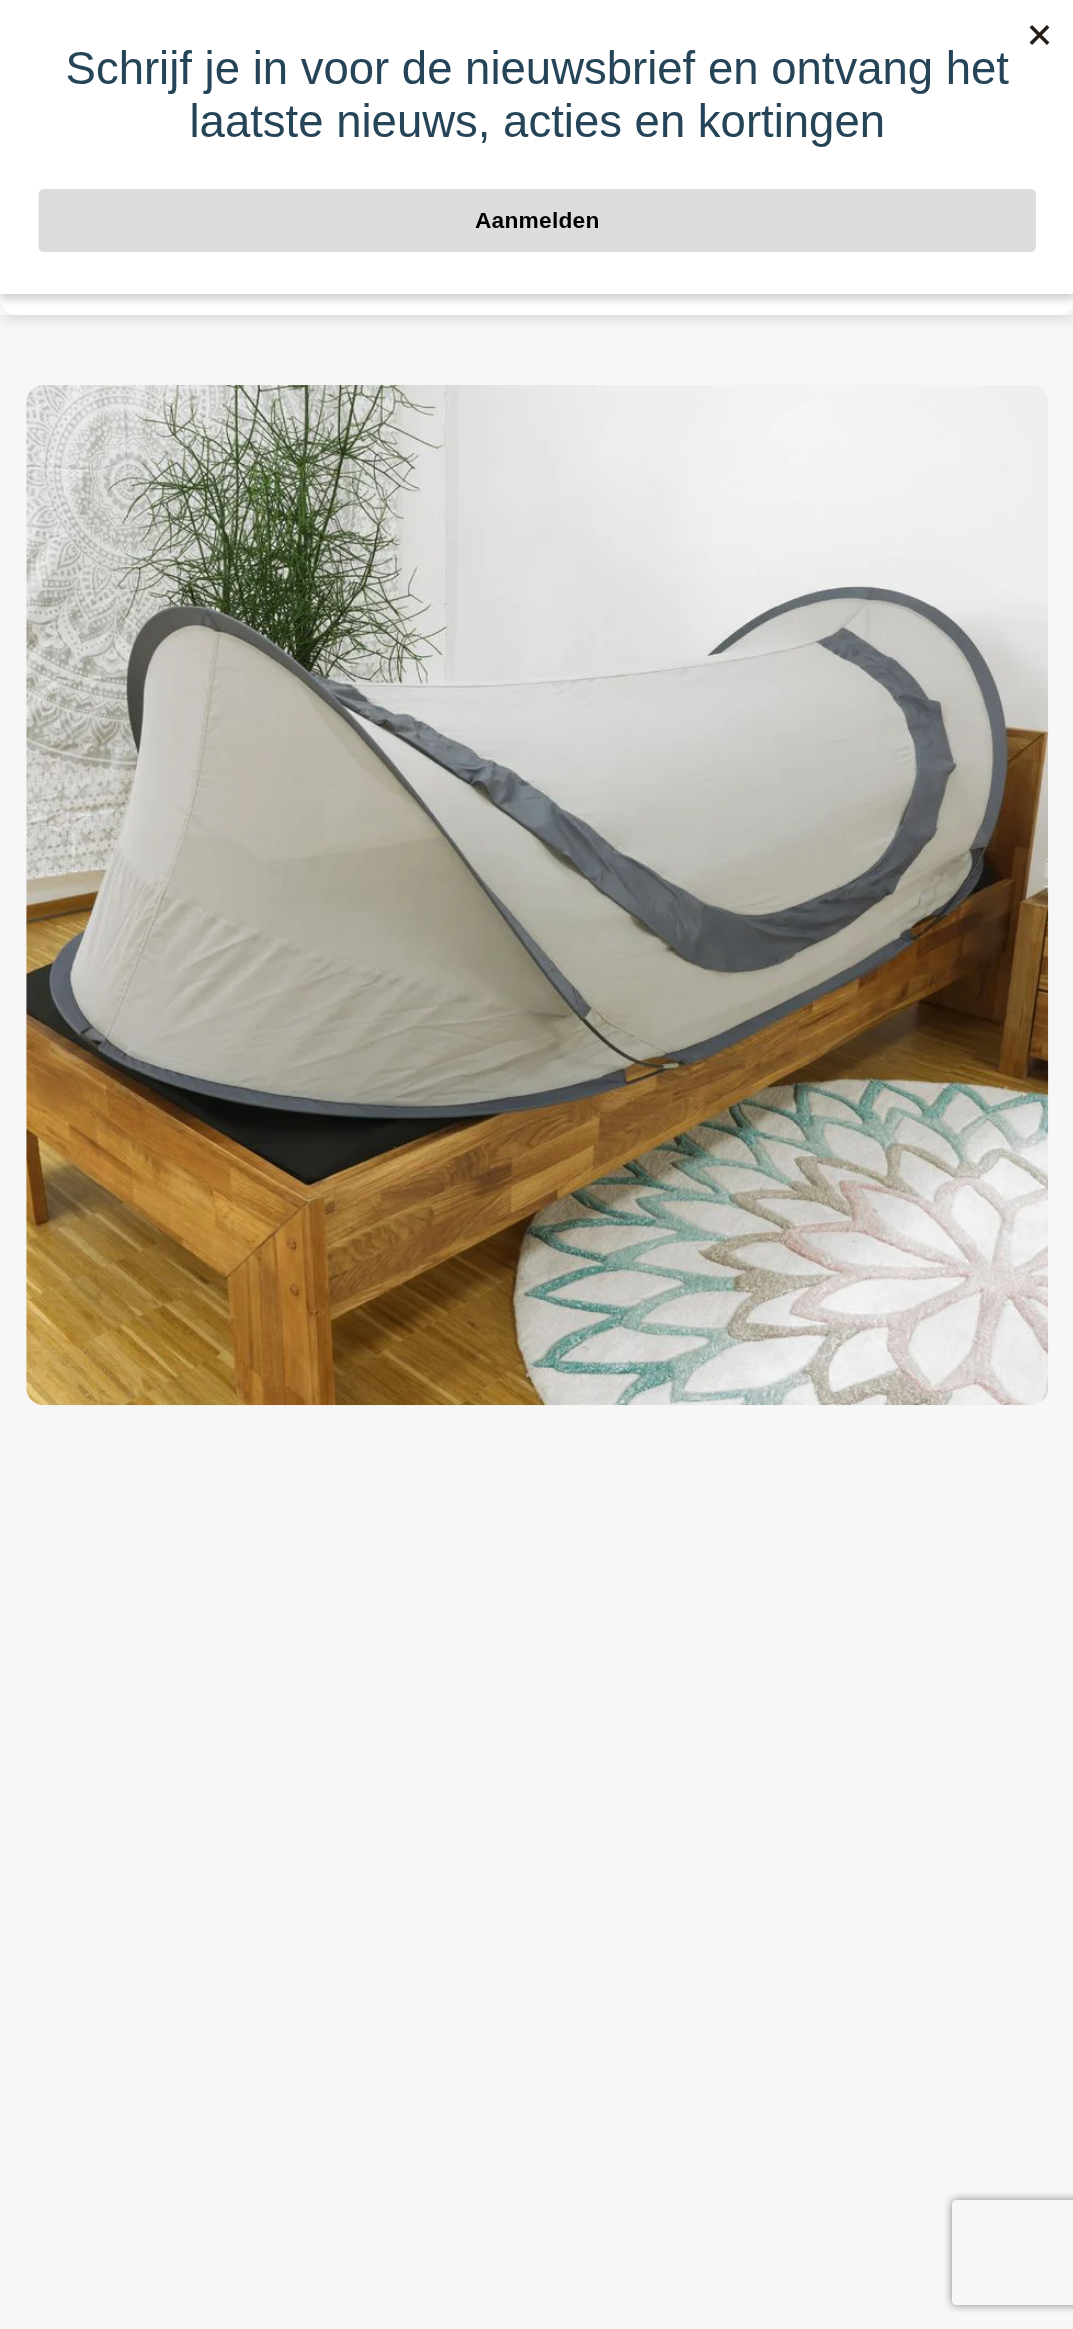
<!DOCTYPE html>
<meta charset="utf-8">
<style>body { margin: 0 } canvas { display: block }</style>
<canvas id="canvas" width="1073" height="2329"></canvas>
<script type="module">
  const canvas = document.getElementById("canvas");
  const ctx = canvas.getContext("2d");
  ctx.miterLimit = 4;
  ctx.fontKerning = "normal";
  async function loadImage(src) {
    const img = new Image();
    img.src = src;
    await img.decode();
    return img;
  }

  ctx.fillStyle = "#f7f7f7";
  ctx.fillRect(0, 0, 1073, 2329);
  ctx.save();
  ctx.beginPath();
  ctx.rect(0, 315, 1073, 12);
  ctx.clip();
  ctx.fillStyle = "rgba(0, 0, 0, 0.15)";
  ctx.filter = "blur(9px)";
  ctx.beginPath();
  ctx.rect(2, 2, 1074, 315);
  ctx.fill();
  ctx.filter = "none";
  ctx.restore();
  ctx.fillStyle = "#ffffff";
  ctx.beginPath();
  ctx.roundRect(0, 0, 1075, 315, 18);
  ctx.fill();
  ctx.drawImage(await loadImage("img1.png"), 26, 385, 1023, 1021);
  ctx.fillStyle = "rgba(0, 0, 0, 0.2)";
  ctx.filter = "blur(5px)";
  ctx.beginPath();
  ctx.rect(0, 5, 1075, 294);
  ctx.fill();
  ctx.filter = "none";
  ctx.fillStyle = "#ffffff";
  ctx.fillRect(0, 0, 1073, 294);
  ctx.drawImage(await loadImage("img2.png"), 38, 25, 1012, 227);
  ctx.save();
  ctx.beginPath();
  ctx.moveTo(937, 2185);
  ctx.lineTo(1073, 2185);
  ctx.lineTo(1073, 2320);
  ctx.lineTo(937, 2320);
  ctx.closePath();
  ctx.moveTo(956, 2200);
  ctx.lineTo(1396, 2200);
  ctx.bezierCurveTo(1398, 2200, 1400, 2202, 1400, 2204);
  ctx.lineTo(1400, 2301);
  ctx.bezierCurveTo(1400, 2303, 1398, 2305, 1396, 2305);
  ctx.lineTo(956, 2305);
  ctx.bezierCurveTo(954, 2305, 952, 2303, 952, 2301);
  ctx.lineTo(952, 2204);
  ctx.bezierCurveTo(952, 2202, 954, 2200, 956, 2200);
  ctx.closePath();
  ctx.clip("evenodd");
  ctx.fillStyle = "#808080";
  ctx.filter = "blur(4.5px)";
  ctx.beginPath();
  ctx.roundRect(952, 2200, 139, 105, 4);
  ctx.fill();
  ctx.filter = "none";
  ctx.restore();
</script>
